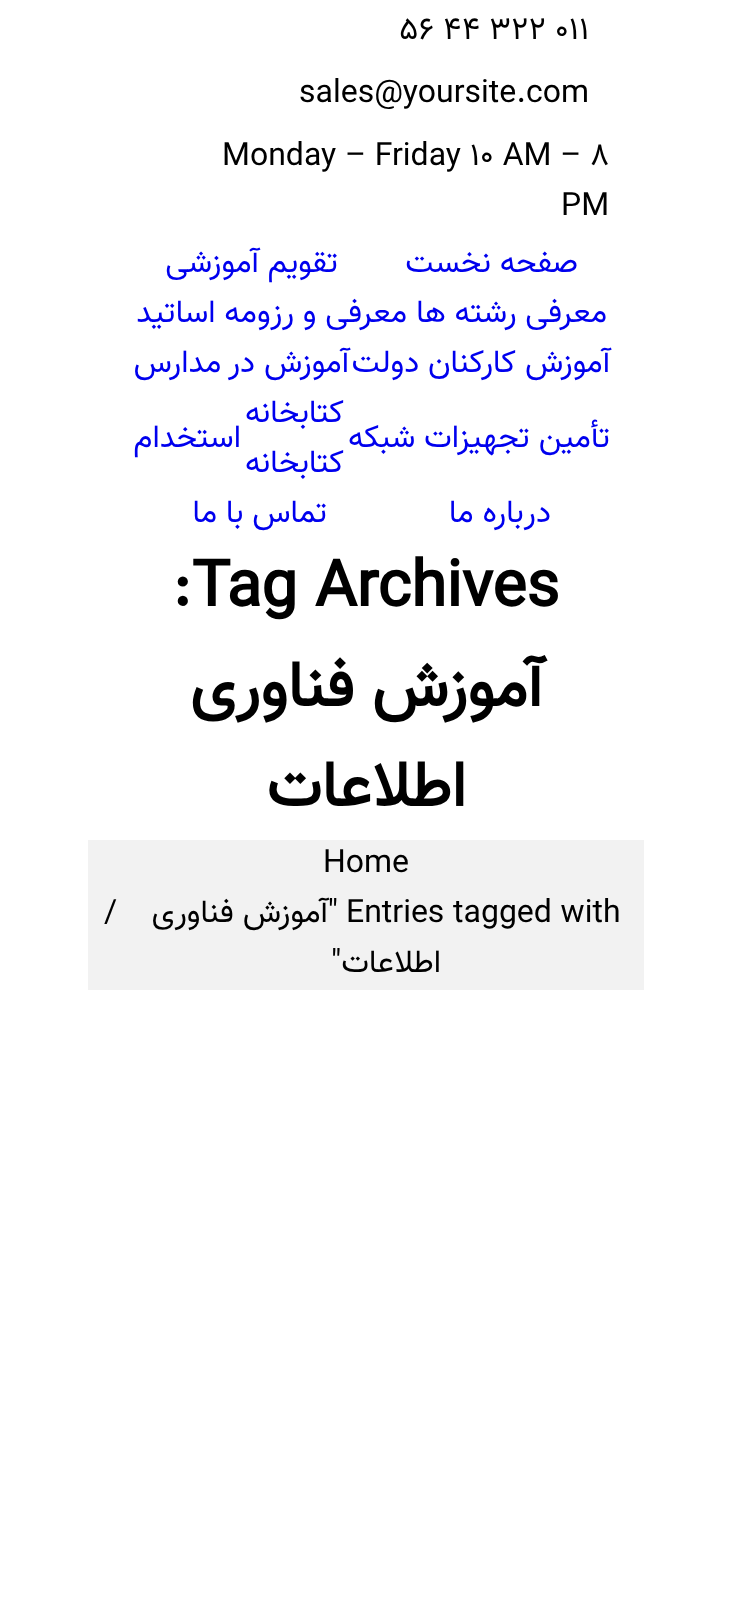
<!DOCTYPE html>
<meta charset="utf-8">
<style>body { margin: 0 } canvas { display: block }</style>
<canvas id="canvas" width="731" height="1618"></canvas>
<script type="module">
  const canvas = document.getElementById("canvas");
  const ctx = canvas.getContext("2d");
  ctx.miterLimit = 4;
  ctx.fontKerning = "normal";

  ctx.fillStyle = "#ffffff";
  ctx.fillRect(0, 0, 731, 1618);
  ctx.font = "32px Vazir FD";
  ctx.fillStyle = "#000000";
  ctx.fillText("56 44 322 011", 399, 39);
  ctx.fillText("sales@yoursite.com", 299, 102);
  ctx.fillText("Monday – Friday 10 AM – 8", 222, 165);
  ctx.fillText("PM", 561, 215);
  ctx.direction = "rtl";
  ctx.fillStyle = "#0000ee";
  ctx.fillText("صفحه نخست", 578, 272);
  ctx.fillText("تقویم آموزشی", 338, 272);
  ctx.fillText("معرفی رشته ها", 607, 322);
  ctx.fillText("معرفی و رزومه اساتید", 407, 322);
  ctx.fillText("آموزش کارکنان دولت", 610, 372);
  ctx.fillText("آموزش در مدارس", 349, 372);
  ctx.fillText("تأمین تجهیزات شبکه", 610, 447);
  ctx.fillText("کتابخانه", 344, 422);
  ctx.fillText("کتابخانه", 344, 472);
  ctx.fillText("استخدام", 241, 447);
  ctx.fillText("درباره ما", 551, 522);
  ctx.fillText("تماس با ما", 327, 522);
  ctx.direction = "ltr";
  ctx.font = "bold 64px Vazir FD";
  ctx.fillStyle = "#000000";
  ctx.fillText(":Tag Archives", 172, 606);
  ctx.direction = "rtl";
  ctx.fillText("آموزش فناوری", 542, 706);
  ctx.fillText("اطلاعات", 466, 806);
  ctx.fillStyle = "#f2f2f2";
  ctx.fillRect(88, 840, 556, 150);
  ctx.direction = "ltr";
  ctx.font = "32px Vazir FD";
  ctx.fillStyle = "#000000";
  ctx.fillText("Home", 323, 872);
  ctx.fillText("Entries tagged with", 346, 922);
  ctx.direction = "rtl";
  ctx.fillText("\"آموزش فناوری", 338, 922);
  ctx.direction = "ltr";
  ctx.fillText("/", 104, 922);
  ctx.direction = "rtl";
  ctx.fillText("اطلاعات\"", 441, 972);
</script>
